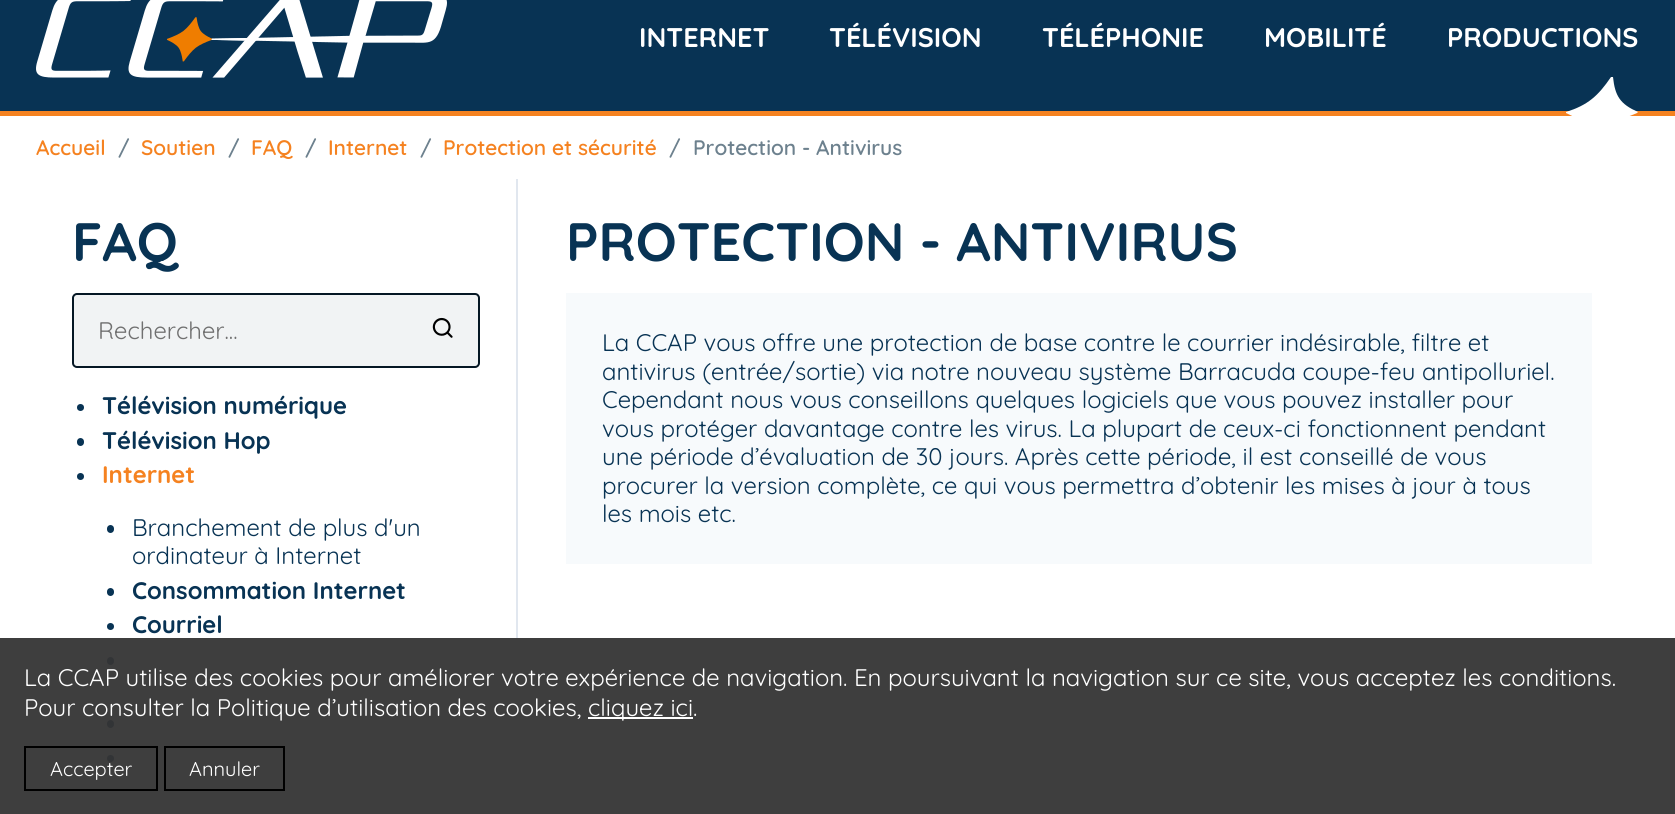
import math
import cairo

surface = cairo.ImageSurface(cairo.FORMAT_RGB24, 1675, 814)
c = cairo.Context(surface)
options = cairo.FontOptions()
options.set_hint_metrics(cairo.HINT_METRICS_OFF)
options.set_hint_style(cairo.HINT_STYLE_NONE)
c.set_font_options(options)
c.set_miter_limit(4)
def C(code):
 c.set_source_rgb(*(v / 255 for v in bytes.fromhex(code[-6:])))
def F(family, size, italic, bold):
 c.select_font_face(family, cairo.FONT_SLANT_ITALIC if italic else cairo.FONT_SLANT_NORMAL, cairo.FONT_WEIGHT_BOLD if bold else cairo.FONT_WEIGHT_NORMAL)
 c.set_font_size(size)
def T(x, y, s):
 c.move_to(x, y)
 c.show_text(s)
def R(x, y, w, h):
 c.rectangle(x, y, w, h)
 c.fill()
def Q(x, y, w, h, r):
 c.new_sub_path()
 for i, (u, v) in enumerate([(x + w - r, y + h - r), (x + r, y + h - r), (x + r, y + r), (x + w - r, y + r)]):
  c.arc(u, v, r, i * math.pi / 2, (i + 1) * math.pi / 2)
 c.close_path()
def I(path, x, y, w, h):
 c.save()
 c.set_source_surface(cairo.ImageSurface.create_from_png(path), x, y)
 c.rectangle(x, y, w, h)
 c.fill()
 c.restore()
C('ffffff')
c.paint()
C('3e3e3e')
R(0,638,1675,176)
C('083354')
R(0,0,1675,111)
C('f58220')
R(0,111,1675,5)
I('1.png',36,0,411,78)
F('Quicksand',27,0,1)
C('ffffff')
T(639,47,'INTERNET')
T(829,47,'TÉLÉVISION')
T(1042,47,'TÉLÉPHONIE')
T(1264,47,'MOBILITÉ')
T(1447,47,'PRODUCTIONS')
c.new_path()
c.move_to(1638,112)
c.curve_to(1620,104,1615,96,1613,77)
c.line_to(1611,77)
c.curve_to(1598,96,1588,105,1566,112)
c.line_to(1566,113)
c.curve_to(1584,121,1589,128,1591,148)
c.line_to(1593,148)
c.curve_to(1606,129,1616,121,1637,113)
c.close_path()
c.fill()
F('Quicksand SemiBold',21,0,0)
C('f58220')
T(36,155,'Accueil')
C('6d818e')
T(118,155,'/')
C('f58220')
T(141,155,'Soutien')
C('6d818e')
T(228,155,'/')
C('f58220')
T(251,155,'FAQ')
C('6d818e')
T(305,155,'/')
C('f58220')
T(328,155,'Internet')
C('6d818e')
T(420,155,'/')
C('f58220')
T(443,155,'Protection et sécurité')
C('6d818e')
T(669,155,'/')
T(693,155,'Protection - Antivirus')
F('Quicksand',54,0,1)
C('083354')
T(72,261,'FAQ')
C('f1f3f4')
Q(73,294,406,73,4)
c.fill_preserve()
C('051724')
c.stroke()
F('Quicksand',24,0,0)
C('707070')
T(98,339,'Rechercher...')
I('2.png',432,317,21,21)
C('083354')
c.arc(80.5,407.5,3.5,0,2 * math.pi)
c.fill()
F('Quicksand',24,0,1)
T(102,414,'Télévision numérique')
Q(77,438,7,8,3.5)
c.fill()
T(102,449,'Télévision Hop')
c.new_path()
c.arc(80.5,476.5,3.5,0,2 * math.pi)
c.fill()
C('f58220')
T(102,483,'Internet')
C('083354')
Q(107,525,7,8,3.5)
c.fill()
F('Quicksand',24,0,0)
T(132,536,'Branchement de plus d\'un')
T(132,564,'ordinateur à Internet')
Q(107,588,7,8,3.5)
c.fill()
F('Quicksand',24,0,1)
T(132,599,'Consommation Internet')
c.new_path()
c.arc(110.5,626.5,3.5,0,2 * math.pi)
c.fill()
T(132,633,'Courriel')
C('323436')
Q(107,657,7,8,3.5)
c.fill()
Q(107,720,7,8,3.5)
c.fill()
c.arc(110.5,758.5,3.5,0,2 * math.pi)
c.fill()
C('e1e7ef')
R(516,179,2,459)
F('Quicksand',54,0,1)
C('083354')
T(566,261,'PROTECTION - ANTIVIRUS')
C('f7fafc')
R(566,293,1026,271)
F('Quicksand',24,0,0)
C('083354')
T(602,351,'La CCAP vous offre une protection de base contre le courrier indésirable, filtre et')
T(602,380,'antivirus (entrée/sortie) via notre nouveau système Barracuda coupe-feu antipolluriel.')
T(602,408,'Cependant nous vous conseillons quelques logiciels que vous pouvez installer pour')
T(602,437,'vous protéger davantage contre les virus. La plupart de ceux-ci fonctionnent pendant')
T(602,465,'une période d’évaluation de 30 jours. Après cette période, il est conseillé de vous')
T(602,494,'procurer la version complète, ce qui vous permettra d’obtenir les mises à jour à tous')
T(602,522,'les mois etc.')
C('ffffff')
T(24,686,'La CCAP utilise des cookies pour améliorer votre expérience de navigation. En poursuivant la navigation sur ce site, vous acceptez les conditions.')
T(24,716,'Pour consulter la Politique d’utilisation des cookies,')
R(588,717,105,2)
T(588,716,'cliquez ici.')
c.rectangle(25,747,132,43)
C('000000')
c.stroke()
F('Quicksand',20,0,0)
C('ffffff')
T(50,776,'Accepter')
c.rectangle(165,747,119,43)
C('000000')
c.stroke()
C('ffffff')
T(189,776,'Annuler')
surface.write_to_png('o.png')
